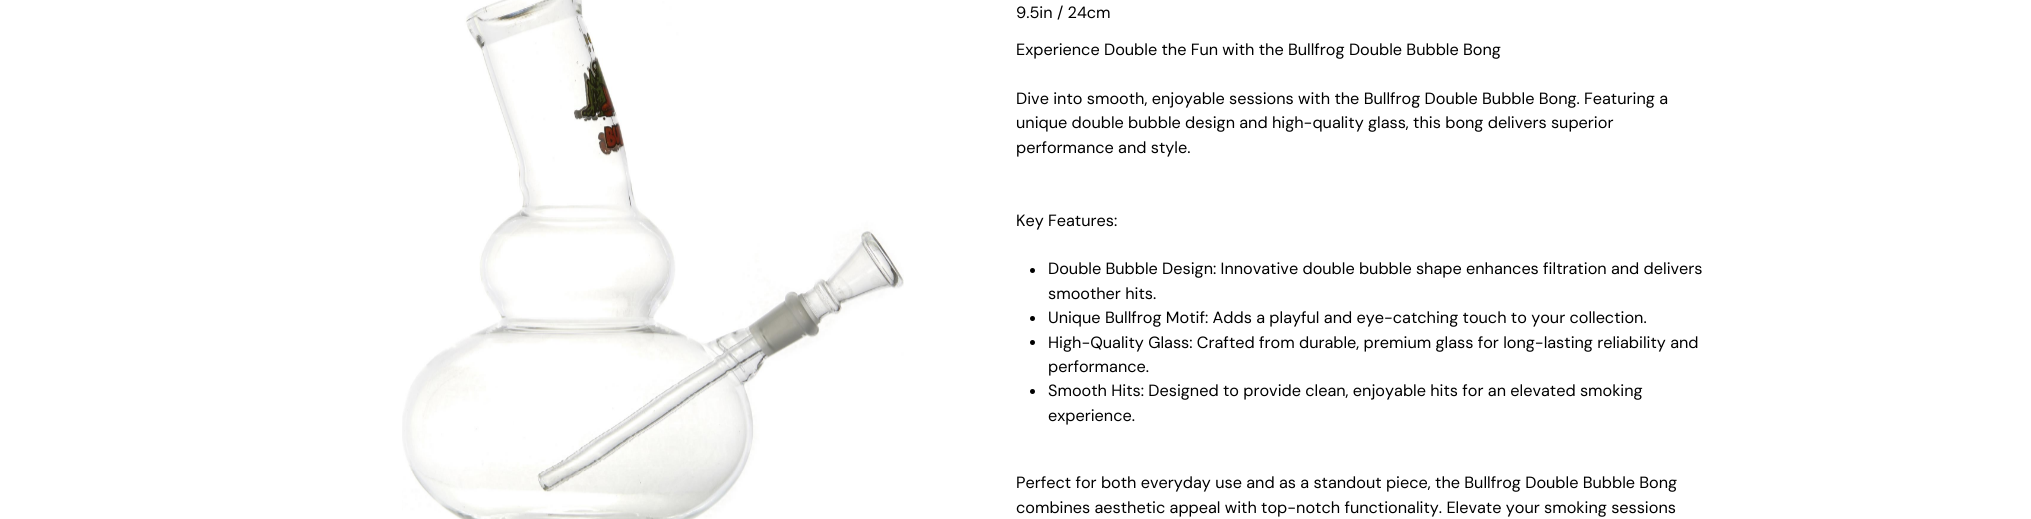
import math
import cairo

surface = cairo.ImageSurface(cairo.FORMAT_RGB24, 2031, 519)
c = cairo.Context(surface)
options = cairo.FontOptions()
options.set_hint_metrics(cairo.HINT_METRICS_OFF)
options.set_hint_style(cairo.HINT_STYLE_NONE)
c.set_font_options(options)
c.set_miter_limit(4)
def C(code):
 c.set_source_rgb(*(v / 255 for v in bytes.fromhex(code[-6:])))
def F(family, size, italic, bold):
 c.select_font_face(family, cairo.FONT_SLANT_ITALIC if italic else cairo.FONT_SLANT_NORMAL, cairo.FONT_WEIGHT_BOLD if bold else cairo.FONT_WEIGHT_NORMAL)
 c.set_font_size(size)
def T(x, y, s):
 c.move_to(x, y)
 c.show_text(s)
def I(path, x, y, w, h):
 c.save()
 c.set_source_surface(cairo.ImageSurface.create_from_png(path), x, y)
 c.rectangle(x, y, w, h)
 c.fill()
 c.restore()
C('ffffff')
c.paint()
I('1.png',402,0,502,519)
F('DM Sans',16.25,0,0)
C('000000')
T(1016,18,'9.5in / 24cm')
T(1016,55,'Experience Double the Fun with the Bullfrog Double Bubble Bong')
T(1016,104,'Dive into smooth, enjoyable sessions with the Bullfrog Double Bubble Bong. Featuring a')
T(1016,128,'unique double bubble design and high-quality glass, this bong delivers superior')
T(1016,153,'performance and style.')
T(1016,226,'Key Features:')
c.new_path()
c.arc(1032.5,270.5,2.5,0,2 * math.pi)
c.fill()
T(1048,274,'Double Bubble Design: Innovative double bubble shape enhances filtration and delivers')
T(1048,299,'smoother hits.')
c.new_path()
c.arc(1032.5,318.5,2.5,0,2 * math.pi)
c.fill()
T(1048,323,'Unique Bullfrog Motif: Adds a playful and eye-catching touch to your collection.')
c.new_path()
c.arc(1032.5,342.5,2.5,0,2 * math.pi)
c.fill()
T(1048,348,'High-Quality Glass: Crafted from durable, premium glass for long-lasting reliability and')
T(1048,372,'performance.')
c.new_path()
c.arc(1032.5,391.5,2.5,0,2 * math.pi)
c.fill()
T(1048,396,'Smooth Hits: Designed to provide clean, enjoyable hits for an elevated smoking')
T(1048,421,'experience.')
T(1016,488,'Perfect for both everyday use and as a standout piece, the Bullfrog Double Bubble Bong')
T(1016,513,'combines aesthetic appeal with top-notch functionality. Elevate your smoking sessions')
surface.write_to_png('o.png')
